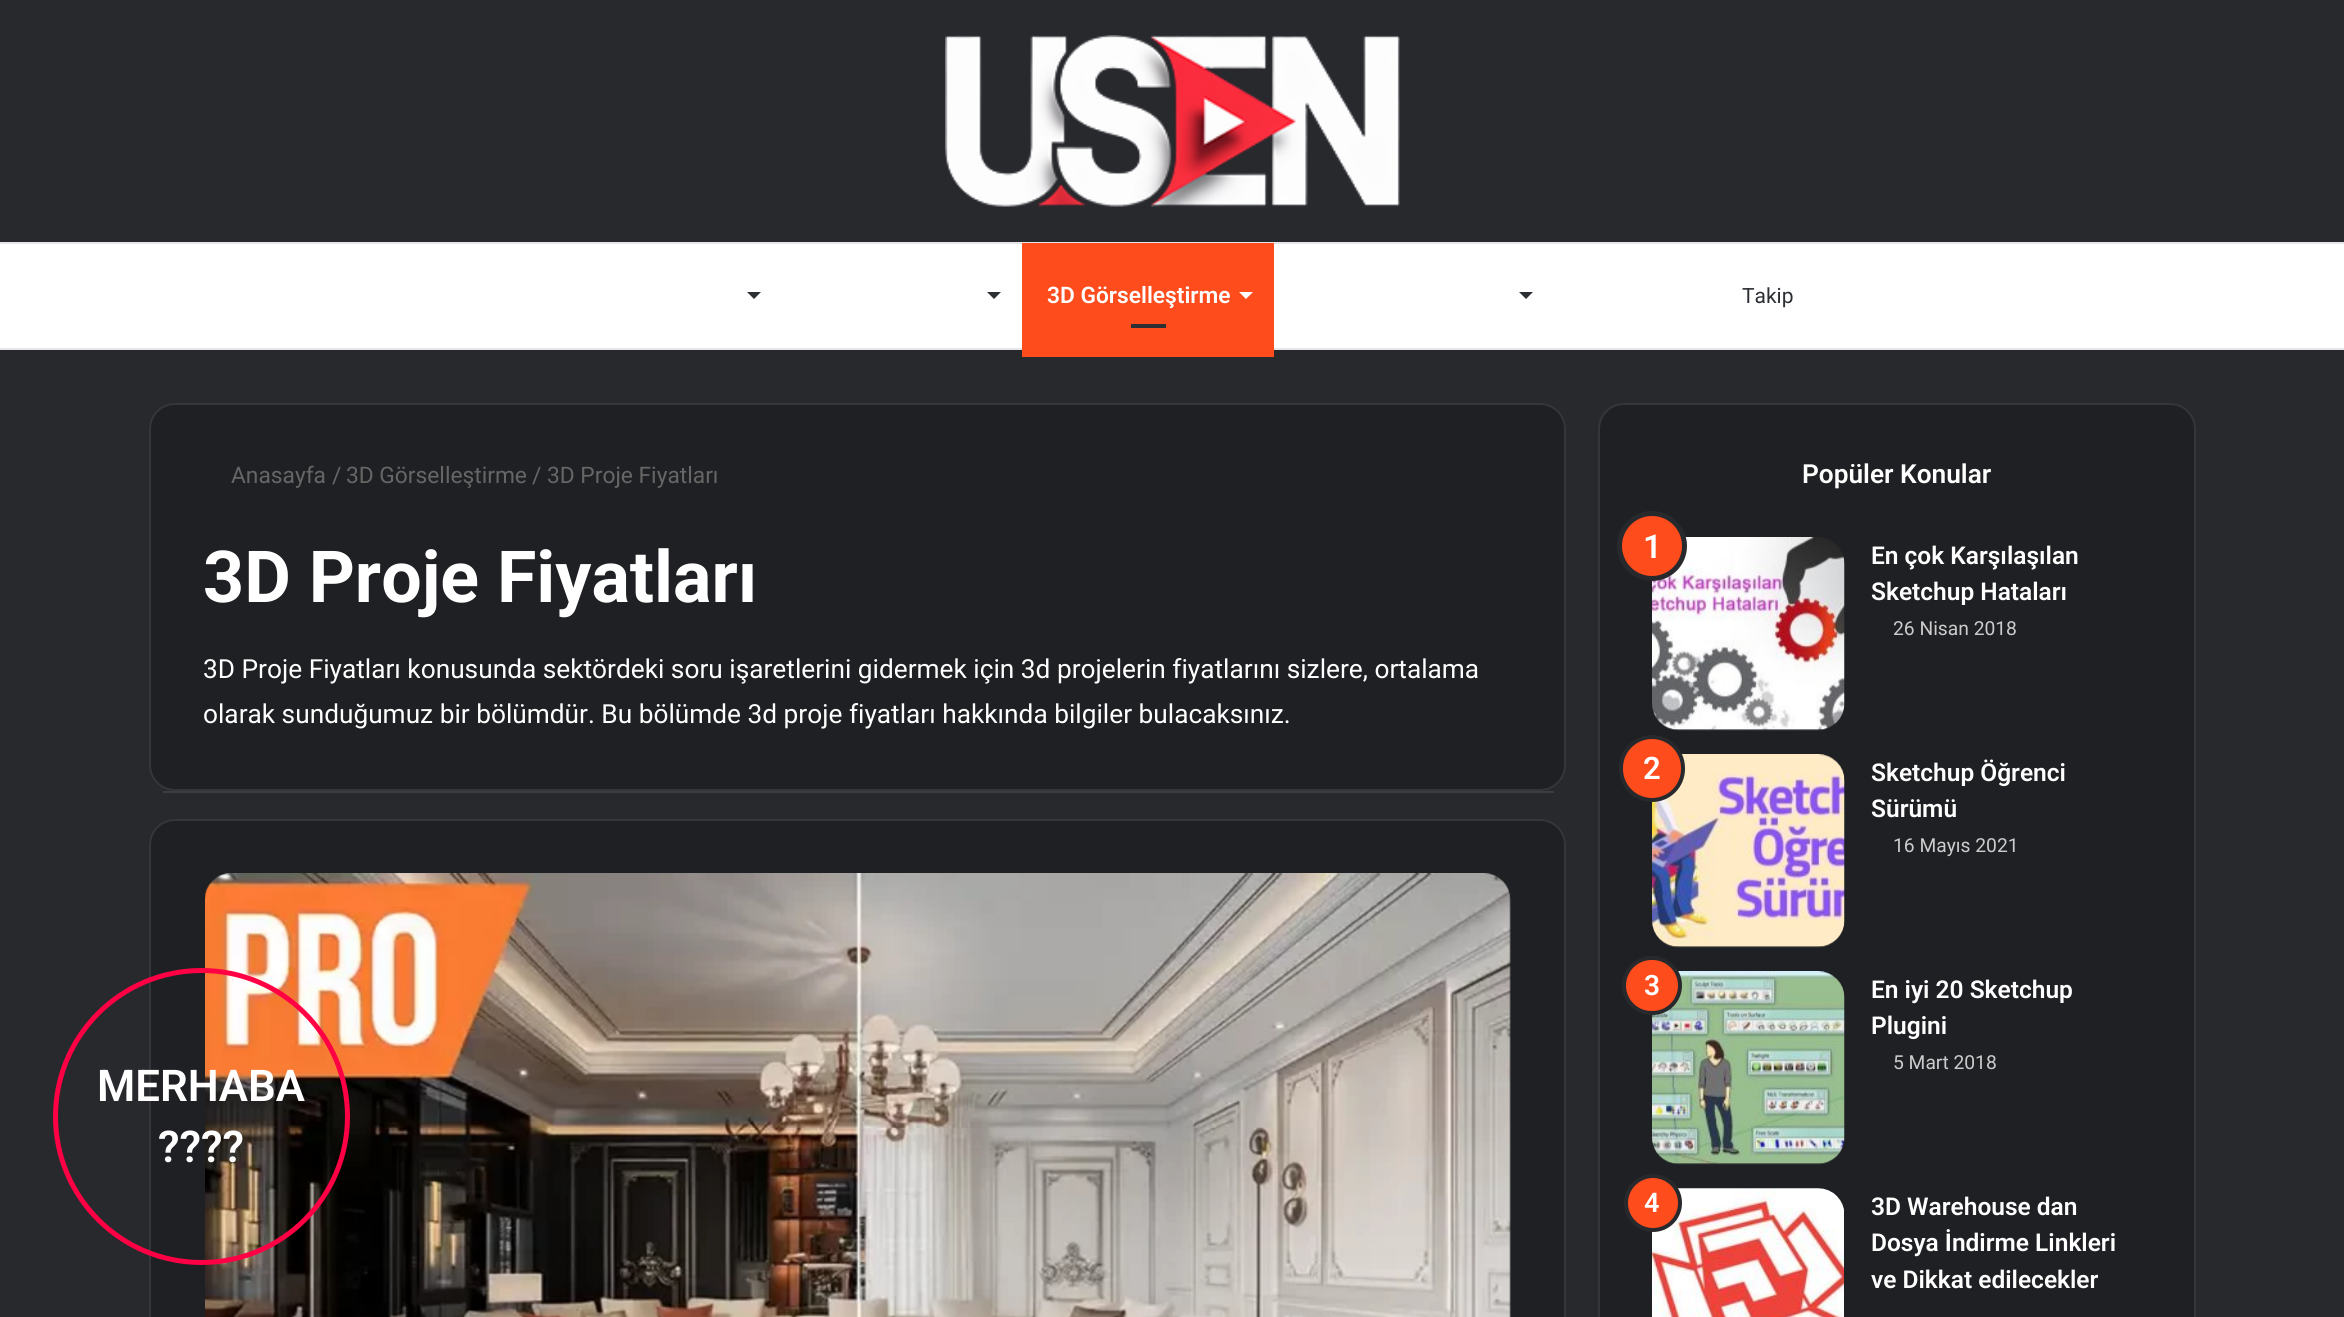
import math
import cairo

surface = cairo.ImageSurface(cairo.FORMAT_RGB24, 2344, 1317)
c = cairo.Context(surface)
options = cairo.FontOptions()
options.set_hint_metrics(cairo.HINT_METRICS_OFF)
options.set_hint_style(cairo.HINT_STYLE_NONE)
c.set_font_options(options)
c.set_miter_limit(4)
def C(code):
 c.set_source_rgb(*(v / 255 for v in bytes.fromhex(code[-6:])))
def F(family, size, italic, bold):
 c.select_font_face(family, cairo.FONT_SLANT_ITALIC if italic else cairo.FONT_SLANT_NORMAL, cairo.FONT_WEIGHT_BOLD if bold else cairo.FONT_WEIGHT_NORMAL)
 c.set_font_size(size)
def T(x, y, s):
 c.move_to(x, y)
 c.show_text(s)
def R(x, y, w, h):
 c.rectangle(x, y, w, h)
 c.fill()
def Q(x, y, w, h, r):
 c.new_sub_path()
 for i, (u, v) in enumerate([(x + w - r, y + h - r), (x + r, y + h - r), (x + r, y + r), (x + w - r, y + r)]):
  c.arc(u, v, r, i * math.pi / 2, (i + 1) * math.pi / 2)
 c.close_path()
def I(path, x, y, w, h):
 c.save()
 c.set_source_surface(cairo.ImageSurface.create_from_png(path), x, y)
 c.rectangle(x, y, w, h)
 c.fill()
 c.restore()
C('27292d')
c.paint()
C('1f2024')
Q(149,819,1417,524,26)
c.fill()
Q(150,820,1415,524,25)
c.set_source_rgba(1,1,1,0.1)
c.stroke()
I('2.png',205,873,1306,444)
c.arc(201.5,1116.5,146,0,2 * math.pi)
C('ff0044')
c.set_line_width(5)
c.stroke()
F('Roboto SemiBold',43.75,0,0)
C('ffffff')
T(97,1101,'MERHABA')
T(158,1162,'????')
I('1.png',945,35,455,172)
R(0,244,2344,104)
C('e6e6e6')
R(0,242,2344,2)
R(0,348,2344,2)
C('2c2f34')
c.new_path()
c.move_to(747,292)
c.line_to(761,292)
c.line_to(754,299)
c.close_path()
c.fill()
c.new_path()
c.move_to(987,292)
c.line_to(1001,292)
c.line_to(994,299)
c.close_path()
c.fill()
C('fe4c1c')
R(1022,243,252,114)
F('Roboto SemiBold',22.75,0,0)
C('ffffff')
T(1047,303,'3D Görselleştirme')
c.new_path()
c.move_to(1239,292)
c.line_to(1253,292)
c.line_to(1246,299)
c.close_path()
c.fill()
C('2c2f34')
R(1131,324,35,4)
c.new_path()
c.move_to(1519,292)
c.line_to(1533,292)
c.line_to(1526,299)
c.close_path()
c.fill()
F('Roboto',21,0,0)
T(1742,303,'Takip')
C('1f2024')
Q(149,403,1417,388,26)
c.fill()
Q(150,404,1415,386,25)
c.set_source_rgba(1,1,1,0.1)
c.set_line_width(2)
c.stroke()
F('Roboto',22.75,0,0)
C('666666')
T(231,483,'Anasayfa')
T(332,483,'/')
T(346,483,'3D Görselleştirme')
T(532,483,'/')
T(547,483,'3D Proje Fiyatları')
F('Roboto',71.75,0,1)
C('ffffff')
T(203,602,'3D Proje Fiyatları')
F('Roboto',26.25,0,0)
T(203,678,'3D Proje Fiyatları konusunda sektördeki soru işaretlerini gidermek için 3d projelerin fiyatlarını sizlere, ortalama')
T(203,723,'olarak sunduğumuz bir bölümdür. Bu bölümde 3d proje fiyatları hakkında bilgiler bulacaksınız.')
C('3b3d41')
R(163,791,1391,2)
C('1f2024')
Q(1598,403,598,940,26)
c.fill()
Q(1599,404,596,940,25)
c.set_source_rgba(1,1,1,0.1)
c.stroke()
F('Roboto SemiBold',26.25,0,0)
C('ffffff')
T(1802,483,'Popüler Konular')
I('3.png',1652,537,193,194)
C('fe4c1c')
c.arc(1652,546,32.5,0,2 * math.pi)
c.fill_preserve()
C('27292d')
c.set_line_width(5)
c.stroke()
F('Roboto SemiBold',33,0,0)
C('ffffff')
T(1643,558,'1')
F('Roboto SemiBold',24.5,0,0)
T(1871,564,'En çok Karşılaşılan')
T(1871,600,'Sketchup Hataları')
F('Roboto',19.25,0,0)
C('cccccc')
T(1893,635,'26 Nisan 2018')
I('4.png',1652,754,193,194)
C('fe4c1c')
Q(1621,737,62,63,31)
c.fill_preserve()
C('27292d')
c.set_line_width(4)
c.stroke()
F('Roboto SemiBold',31,0,0)
C('ffffff')
T(1643,779,'2')
F('Roboto SemiBold',24.5,0,0)
T(1871,781,'Sketchup Öğrenci')
T(1871,817,'Sürümü')
F('Roboto',19.25,0,0)
C('cccccc')
T(1893,852,'16 Mayıs 2021')
I('5.png',1652,971,193,194)
C('fe4c1c')
Q(1624,958,56,55,27.5)
c.fill_preserve()
C('27292d')
c.stroke()
F('Roboto SemiBold',28,0,0)
C('ffffff')
T(1644,995,'3')
F('Roboto SemiBold',24.5,0,0)
T(1871,998,'En iyi 20 Sketchup')
T(1871,1034,'Plugini')
F('Roboto',19.25,0,0)
C('cccccc')
T(1893,1069,'5 Mart 2018')
I('6.png',1652,1188,192,129)
C('fe4c1c')
c.arc(1653,1203,27,0,2 * math.pi)
c.fill_preserve()
C('27292d')
c.stroke()
F('Roboto SemiBold',27,0,0)
C('ffffff')
T(1644,1212,'4')
F('Roboto SemiBold',24.5,0,0)
T(1871,1215,'3D Warehouse dan')
T(1871,1251,'Dosya İndirme Linkleri')
T(1871,1288,'ve Dikkat edilecekler')
surface.write_to_png('o.png')
